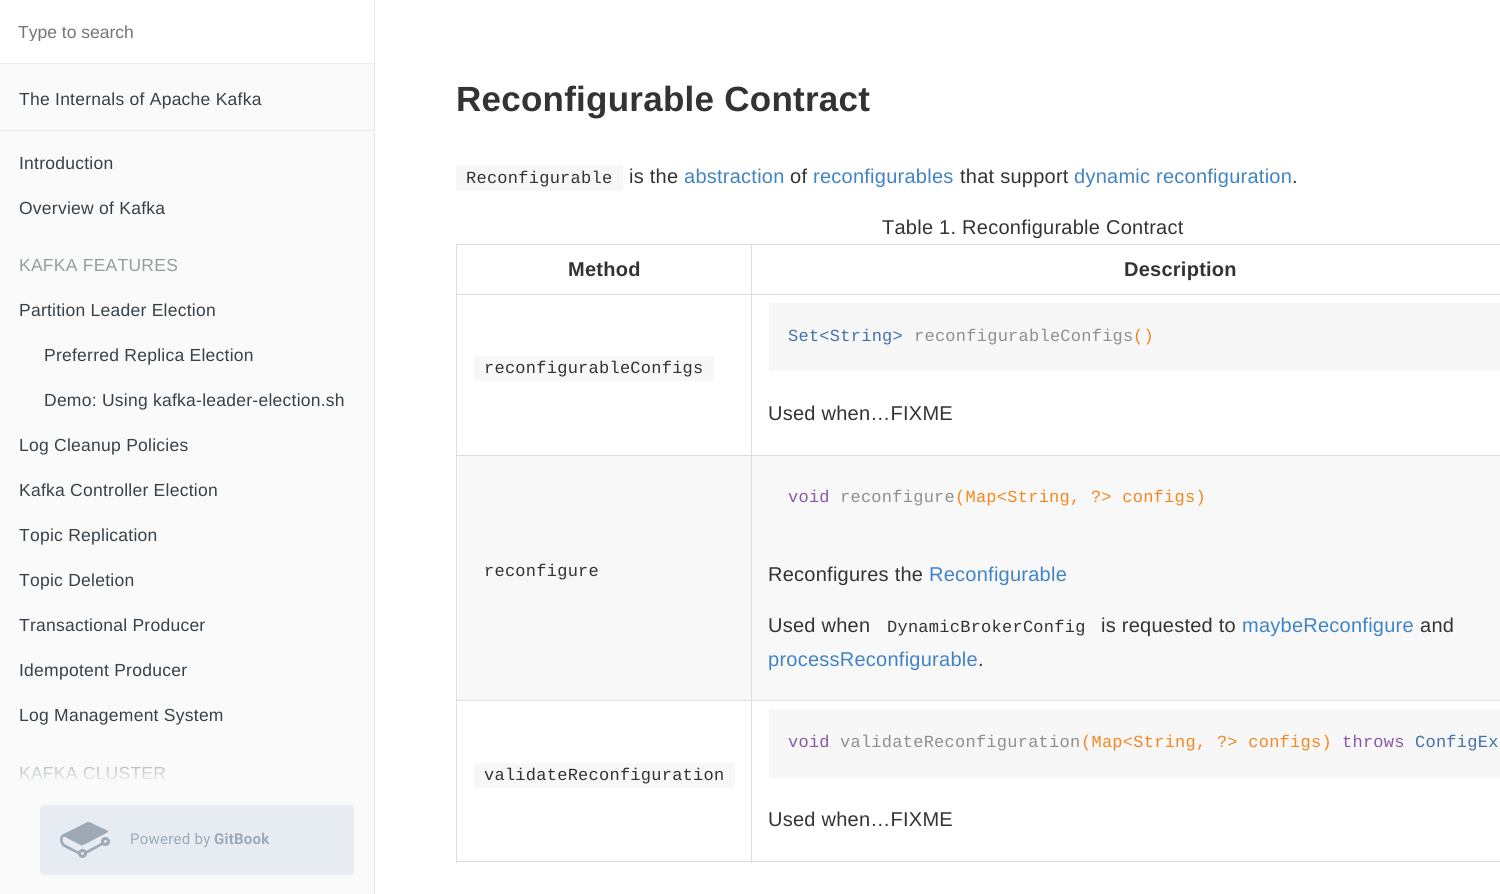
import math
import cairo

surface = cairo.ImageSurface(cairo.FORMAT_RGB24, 1500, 894)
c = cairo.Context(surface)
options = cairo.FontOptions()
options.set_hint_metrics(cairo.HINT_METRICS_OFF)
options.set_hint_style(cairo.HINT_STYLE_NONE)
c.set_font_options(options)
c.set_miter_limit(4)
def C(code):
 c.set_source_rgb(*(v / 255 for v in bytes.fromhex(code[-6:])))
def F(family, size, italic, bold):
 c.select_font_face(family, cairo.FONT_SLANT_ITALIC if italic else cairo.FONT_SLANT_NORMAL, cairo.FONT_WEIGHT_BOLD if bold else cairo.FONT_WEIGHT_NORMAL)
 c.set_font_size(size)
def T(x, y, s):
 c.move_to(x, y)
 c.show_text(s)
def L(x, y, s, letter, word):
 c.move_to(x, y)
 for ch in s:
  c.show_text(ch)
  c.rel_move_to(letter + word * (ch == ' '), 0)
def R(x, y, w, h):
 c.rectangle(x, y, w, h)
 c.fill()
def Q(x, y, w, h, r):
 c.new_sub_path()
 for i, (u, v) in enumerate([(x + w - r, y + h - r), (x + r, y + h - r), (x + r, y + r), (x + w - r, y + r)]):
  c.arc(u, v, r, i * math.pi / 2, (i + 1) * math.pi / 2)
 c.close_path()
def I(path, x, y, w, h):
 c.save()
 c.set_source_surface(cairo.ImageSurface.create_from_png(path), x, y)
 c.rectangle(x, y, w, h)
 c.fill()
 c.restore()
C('ffffff')
c.paint()
C('fafafa')
R(0,64,374,830)
C('e9e9e9')
R(374,0,1,894)
C('ededed')
R(0,63,374,1)
c.save()
c.rectangle(18,21,338,20)
c.clip()
F('Liberation Sans',17.5,0,0)
C('757575')
T(18,38,'Type to search')
c.restore()
F('Liberation Sans',17.5,0,0)
C('364149')
L(19,105,'The Internals of Apache Kafka',.25,0)
C('e9e9e9')
R(0,130,374,1)
C('364149')
L(19,169,'Introduction',.25,0)
L(19,214,'Overview of Kafka',.25,0)
C('939da3')
L(19,271,'KAFKA FEATURES',.25,0)
C('364149')
L(19,316,'Partition Leader Election',.25,0)
L(44,361,'Preferred Replica Election',.25,0)
L(44,406,'Demo: Using kafka-leader-election.sh',.25,0)
L(19,451,'Log Cleanup Policies',.25,0)
L(19,496,'Kafka Controller Election',.25,0)
L(19,541,'Topic Replication',.25,0)
L(19,586,'Topic Deletion',.25,0)
L(19,631,'Transactional Producer',.25,0)
L(19,676,'Idempotent Producer',.25,0)
L(19,721,'Log Management System',.25,0)
C('939da3')
L(19,779,'KAFKA CLUSTER',.25,0)
gradient = cairo.LinearGradient(187,755,187,785)
gradient.add_color_stop_rgba(0,0.98,0.98,0.98,0)
gradient.add_color_stop_rgba(1,0.98,0.98,0.98,1)
c.set_source(gradient)
R(20,766,145,14)
C('e6ecf1')
Q(40,805,314,70,4)
c.fill()
I('1.png',60,822,50,36)
F('Roboto',15,0,0)
C('9daab6')
L(130,844,'Powered by',.25,0)
F('Roboto',15,0,1)
L(214,844,'GitBook',.25,0)
F('Liberation Sans',35,0,1)
C('333333')
L(456,111,'Reconfigurable Contract',.25,0)
C('f7f7f7')
R(456,165,167,26)
F('Liberation Mono',17,0,0)
C('333333')
L(466,183,'Reconfigurable',.25,0)
F('Liberation Sans',20,0,0)
L(629,183,'is the',.25,0)
C('4183c4')
L(684,183,'abstraction',.25,0)
C('333333')
L(790,183,'of',.25,0)
C('4183c4')
L(813,183,'reconfigurables',.25,0)
C('333333')
L(960,183,'that support',.25,0)
C('4183c4')
L(1074,183,'dynamic reconfiguration',.25,0)
C('333333')
L(1292,183,'.',.25,0)
L(882,234,'Table 1. Reconfigurable Contract',.25,0)
C('dddddd')
R(751,244,749,1)
R(751,294,749,1)
R(751,455,749,1)
C('f8f8f8')
R(458,456,1042,244)
C('dddddd')
R(751,700,749,1)
R(751,861,749,1)
R(751,700,1,163)
R(456,700,297,1)
R(751,455,1,246)
R(456,455,297,1)
R(751,294,1,162)
R(456,294,297,1)
R(751,244,1,51)
R(456,244,297,1)
R(456,861,297,1)
R(456,700,1,163)
R(456,455,1,246)
R(456,294,1,162)
R(456,244,1,51)
F('Liberation Sans',20,0,1)
C('333333')
L(568,276,'Method',.25,0)
L(1124,276,'Description',.25,0)
C('f7f7f7')
R(474,356,240,25)
F('Liberation Mono',17,0,0)
C('333333')
L(484,373,'reconfigurableConfigs',.25,0)
C('f7f7f7')
R(769,303,731,68)
C('4271ae')
L(788,341,'Set<String>',.25,0)
C('8e908c')
L(914,341,'reconfigurableConfigs',.25,0)
C('f5871f')
L(1133,341,'()',.25,0)
F('Liberation Sans',20,0,0)
C('333333')
L(768,420,'Used when…FIXME',.25,0)
F('Liberation Mono',17,0,0)
L(484,576,'reconfigure',.25,0)
C('8959a8')
L(788,502,'void',.25,0)
C('8e908c')
L(840,502,'reconfigure',.25,0)
C('f5871f')
L(955,502,'(Map<String, ?> configs)',.25,0)
F('Liberation Sans',20,0,0)
C('333333')
L(768,581,'Reconfigures the',.25,0)
C('4183c4')
L(929,581,'Reconfigurable',.25,0)
C('333333')
L(768,632,'Used when',.25,0)
F('Liberation Mono',17,0,0)
L(887,632,'DynamicBrokerConfig',.25,0)
F('Liberation Sans',20,0,0)
L(1101,632,'is requested to',.25,0)
C('4183c4')
L(1242,632,'maybeReconfigure',.25,0)
C('333333')
L(1420,632,'and',.25,0)
C('4183c4')
L(768,666,'processReconfigurable',.25,0)
C('333333')
L(978,666,'.',.25,0)
C('f7f7f7')
R(474,763,261,25)
F('Liberation Mono',17,0,0)
C('333333')
L(484,780,'validateReconfiguration',.25,0)
C('f7f7f7')
R(769,709,731,69)
C('8959a8')
L(788,747,'void',.25,0)
C('8e908c')
L(840,747,'validateReconfiguration',.25,0)
C('f5871f')
L(1081,747,'(Map<String, ?> configs)',.25,0)
C('8959a8')
L(1342,747,'throws',.25,0)
C('4271ae')
L(1415,747,'ConfigEx',.25,0)
F('Liberation Sans',20,0,0)
C('333333')
L(768,826,'Used when…FIXME',.25,0)
surface.write_to_png('o.png')
